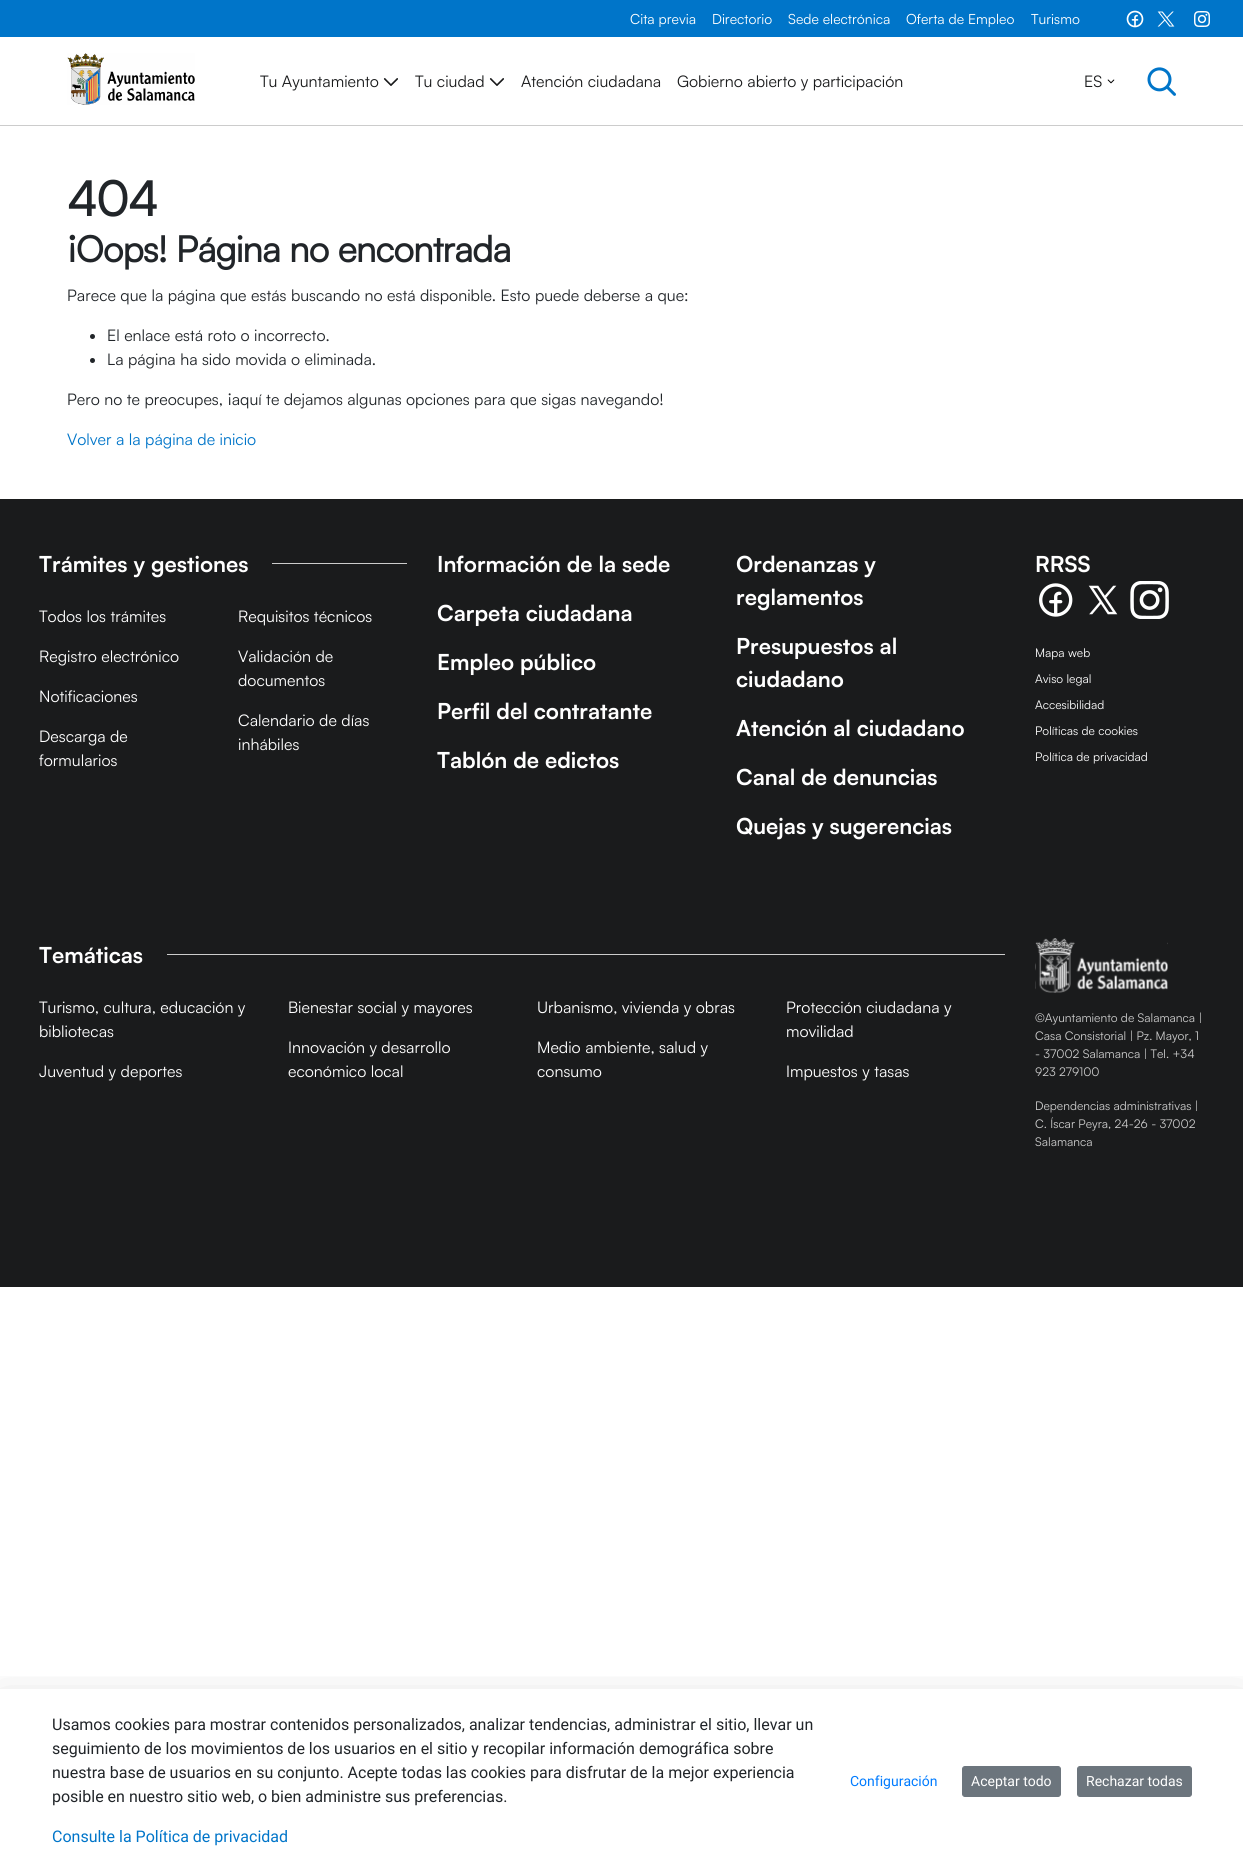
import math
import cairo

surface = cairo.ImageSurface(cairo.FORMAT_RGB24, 1243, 1873)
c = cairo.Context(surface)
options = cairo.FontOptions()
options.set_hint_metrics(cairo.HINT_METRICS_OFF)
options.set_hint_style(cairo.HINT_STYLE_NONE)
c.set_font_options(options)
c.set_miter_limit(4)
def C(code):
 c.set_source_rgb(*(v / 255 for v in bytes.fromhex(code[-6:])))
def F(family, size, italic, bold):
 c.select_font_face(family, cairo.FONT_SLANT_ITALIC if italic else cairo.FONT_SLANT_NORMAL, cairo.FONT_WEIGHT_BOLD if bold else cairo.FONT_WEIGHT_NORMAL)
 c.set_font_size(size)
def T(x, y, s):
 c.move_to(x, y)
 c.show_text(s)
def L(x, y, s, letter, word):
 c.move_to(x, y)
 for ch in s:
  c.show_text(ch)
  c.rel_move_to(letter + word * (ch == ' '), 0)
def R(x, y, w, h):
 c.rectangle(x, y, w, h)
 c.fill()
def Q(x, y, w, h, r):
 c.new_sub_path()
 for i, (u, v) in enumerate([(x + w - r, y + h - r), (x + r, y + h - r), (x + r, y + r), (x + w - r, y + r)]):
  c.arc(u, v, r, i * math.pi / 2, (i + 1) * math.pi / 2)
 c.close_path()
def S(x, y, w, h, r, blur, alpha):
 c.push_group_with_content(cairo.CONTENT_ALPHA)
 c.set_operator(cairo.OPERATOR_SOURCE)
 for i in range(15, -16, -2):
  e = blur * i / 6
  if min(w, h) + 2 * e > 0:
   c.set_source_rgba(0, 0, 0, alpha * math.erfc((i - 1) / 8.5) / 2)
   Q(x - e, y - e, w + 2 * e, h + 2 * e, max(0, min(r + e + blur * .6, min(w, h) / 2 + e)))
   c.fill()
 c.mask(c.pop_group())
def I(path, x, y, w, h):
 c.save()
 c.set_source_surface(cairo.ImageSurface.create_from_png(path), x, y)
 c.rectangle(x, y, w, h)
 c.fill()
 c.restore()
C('ffffff')
c.paint()
C('0075c9')
R(0,0,1243,37)
F('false',14,0,0)
C('ffffff')
T(630,24,'Cita previa')
T(712,24,'Directorio')
T(788,24,'Sede electrónica')
T(906,24,'Oferta de Empleo')
T(1031,24,'Turismo')
I('1.png',1126,10,18,18)
I('2.png',1157,11,18,16)
I('3.png',1194,11,16,16)
C('cccccc')
R(0,125,1243,1)
I('4.png',67,53,128,52)
F('false',16,0,0)
C('1a1b1c')
T(260,87,'Tu Ayuntamiento')
I('5.png',383,78,15,8)
T(415,87,'Tu ciudad')
I('5.png',489,78,15,8)
T(521,87,'Atención ciudadana')
T(677,87,'Gobierno abierto y participación')
I('6.png',1107,79,8,5)
T(1084,87,'ES')
I('7.png',1147,67,29,29)
F('false',48,0,1)
C('212529')
L(67,216,'404',-1,0)
F('false',36,0,1)
L(67,262,'¡Oops! Página no encontrada',-.75,0)
F('false',16,0,0)
T(67,301,'Parece que la página que estás buscando no está disponible. Esto puede deberse a que:')
c.new_path()
c.arc(92.5,336.5,2.5,0,2 * math.pi)
c.fill()
T(107,341,'El enlace está roto o incorrecto.')
c.new_path()
c.arc(92.5,360.5,2.5,0,2 * math.pi)
c.fill()
T(107,365,'La página ha sido movida o eliminada.')
T(67,405,'Pero no te preocupes, ¡aquí te dejamos algunas opciones para que sigas navegando!')
C('0075c9')
T(67,445,'Volver a la página de inicio')
C('1a1b1c')
R(0,499,1243,788)
F('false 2',22,0,1)
C('ffffff')
T(39,572,'Trámites y gestiones')
C('cccccc')
R(272,563,135,1)
F('false',16,0,0)
C('ffffff')
T(39,622,'Todos los trámites')
T(39,662,'Registro electrónico')
T(39,702,'Notificaciones')
T(39,742,'Descarga de')
T(39,766,'formularios')
T(238,622,'Requisitos técnicos')
T(238,662,'Validación de')
T(238,686,'documentos')
T(238,726,'Calendario de días')
T(238,750,'inhábiles')
F('false 2',22,0,1)
T(437,572,'Información de la sede')
T(437,621,'Carpeta ciudadana')
T(437,670,'Empleo público')
T(437,719,'Perfil del contratante')
T(437,768,'Tablón de edictos')
T(736,572,'Ordenanzas y')
T(736,605,'reglamentos')
T(736,654,'Presupuestos al')
T(736,687,'ciudadano')
T(736,736,'Atención al ciudadano')
T(736,785,'Canal de denuncias')
T(736,834,'Quejas y sugerencias')
T(1035,572,'RRSS')
I('8.png',1039,583,34,34)
I('9.png',1088,585,30,30)
I('10.png',1130,581,39,38)
F('false',12,0,0)
T(1035,657,'Mapa web')
T(1035,683,'Aviso legal')
T(1035,709,'Accesibilidad')
T(1035,735,'Políticas de cookies')
T(1035,761,'Política de privacidad')
F('false 2',22,0,1)
T(39,963,'Temáticas')
C('cccccc')
R(167,954,838,1)
F('false',16,0,0)
C('ffffff')
T(39,1013,'Turismo, cultura, educación y')
T(39,1037,'bibliotecas')
T(39,1077,'Juventud y deportes')
T(288,1013,'Bienestar social y mayores')
T(288,1053,'Innovación y desarrollo')
T(288,1077,'económico local')
T(537,1013,'Urbanismo, vivienda y obras')
T(537,1053,'Medio ambiente, salud y')
T(537,1077,'consumo')
T(786,1013,'Protección ciudadana y')
T(786,1037,'movilidad')
T(786,1077,'Impuestos y tasas')
I('11.png',1035,938,133,55)
F('false',12,0,0)
C('cccccc')
T(1035,1022,'©Ayuntamiento de Salamanca |')
T(1035,1040,'Casa Consistorial | Pz. Mayor, 1')
T(1035,1058,'- 37002 Salamanca | Tel. +34')
T(1035,1076,'923 279100')
T(1035,1110,'Dependencias administrativas |')
T(1035,1128,'C. Íscar Peyra, 24-26 - 37002')
T(1035,1146,'Salamanca')
c.save()
c.rectangle(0,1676,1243,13)
c.clip()
C('000000')
S(0,1705,1243,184,0,24,.18)
c.restore()
F('Roboto',16,0,0)
C('212529')
T(52,1730,'Usamos cookies para mostrar contenidos personalizados, analizar tendencias, administrar el sitio, llevar un')
T(52,1754,'seguimiento de los movimientos de los usuarios en el sitio y recopilar información demográfica sobre')
T(52,1778,'nuestra base de usuarios en su conjunto. Acepte todas las cookies para disfrutar de la mejor experiencia')
T(52,1802,'posible en nuestro sitio web, o bien administre sus preferencias.')
C('0075c9')
T(52,1842,'Consulte la Política de privacidad')
F('Roboto',14,0,0)
C('007bff')
T(850,1786,'Configuración')
C('6c757d')
Q(962.5,1766.5,98,30,2.5)
c.fill_preserve()
c.set_line_width(1)
c.stroke()
C('ffffff')
T(971,1786,'Aceptar todo')
C('6c757d')
Q(1077.5,1766.5,114,30,2.5)
c.fill_preserve()
c.stroke()
C('ffffff')
T(1086,1786,'Rechazar todas')
surface.write_to_png('o.png')
